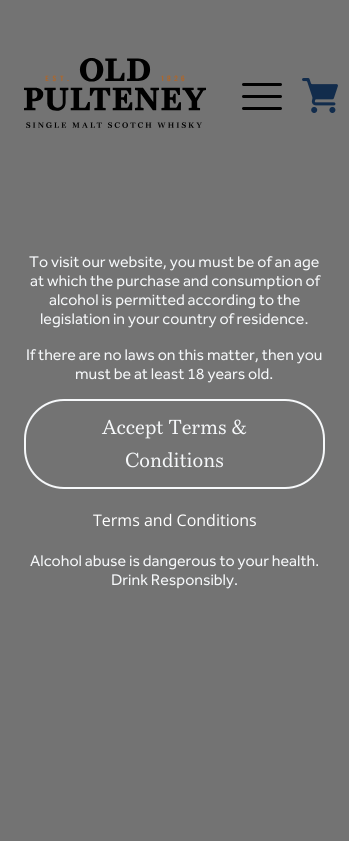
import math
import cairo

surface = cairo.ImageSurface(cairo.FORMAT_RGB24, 349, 841)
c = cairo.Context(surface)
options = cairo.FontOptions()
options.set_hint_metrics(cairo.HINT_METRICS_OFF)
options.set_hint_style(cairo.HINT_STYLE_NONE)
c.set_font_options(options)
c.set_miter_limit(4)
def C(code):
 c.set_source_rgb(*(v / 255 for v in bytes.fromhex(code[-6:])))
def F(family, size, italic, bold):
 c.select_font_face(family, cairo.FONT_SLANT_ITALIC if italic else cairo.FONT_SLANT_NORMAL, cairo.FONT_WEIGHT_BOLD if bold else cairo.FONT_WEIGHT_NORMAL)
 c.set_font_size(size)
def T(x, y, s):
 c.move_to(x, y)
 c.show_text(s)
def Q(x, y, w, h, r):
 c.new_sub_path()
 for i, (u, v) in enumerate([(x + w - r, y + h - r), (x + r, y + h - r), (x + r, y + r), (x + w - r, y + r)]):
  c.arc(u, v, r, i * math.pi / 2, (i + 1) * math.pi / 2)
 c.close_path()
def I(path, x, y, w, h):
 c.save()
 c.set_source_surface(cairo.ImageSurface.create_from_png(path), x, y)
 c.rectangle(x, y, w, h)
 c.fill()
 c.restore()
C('737373')
c.paint()
I('1.png',24,58,182,70)
C('000000')
Q(242,83,40,3,1.5)
c.fill()
Q(242,95,40,3,1.5)
c.fill()
Q(242,107,40,3,1.5)
c.fill()
I('2.png',302,78,36,35)
F('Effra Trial',16,0,0)
C('f6f8fa')
T(29,267,'To visit our website, you must be of an age')
T(30,286,'at which the purchase and consumption of')
T(49,305,'alcohol is permitted according to the')
T(40,324,'legislation in your country of residence.')
T(26,360,'If there are no laws on this matter, then you')
T(75,379,'must be at least 18 years old.')
Q(25,400,299,88,39)
c.stroke()
F('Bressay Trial',20,0,0)
T(102,434,'Accept Terms &')
T(125,467,'Conditions')
F('Open Sans',16,0,0)
C('ffffff')
T(93,526,'Terms and Conditions')
F('Effra Trial',16,0,0)
C('f6f8fa')
T(30,566,'Alcohol abuse is dangerous to your health.')
T(111,585,'Drink Responsibly.')
surface.write_to_png('o.png')
